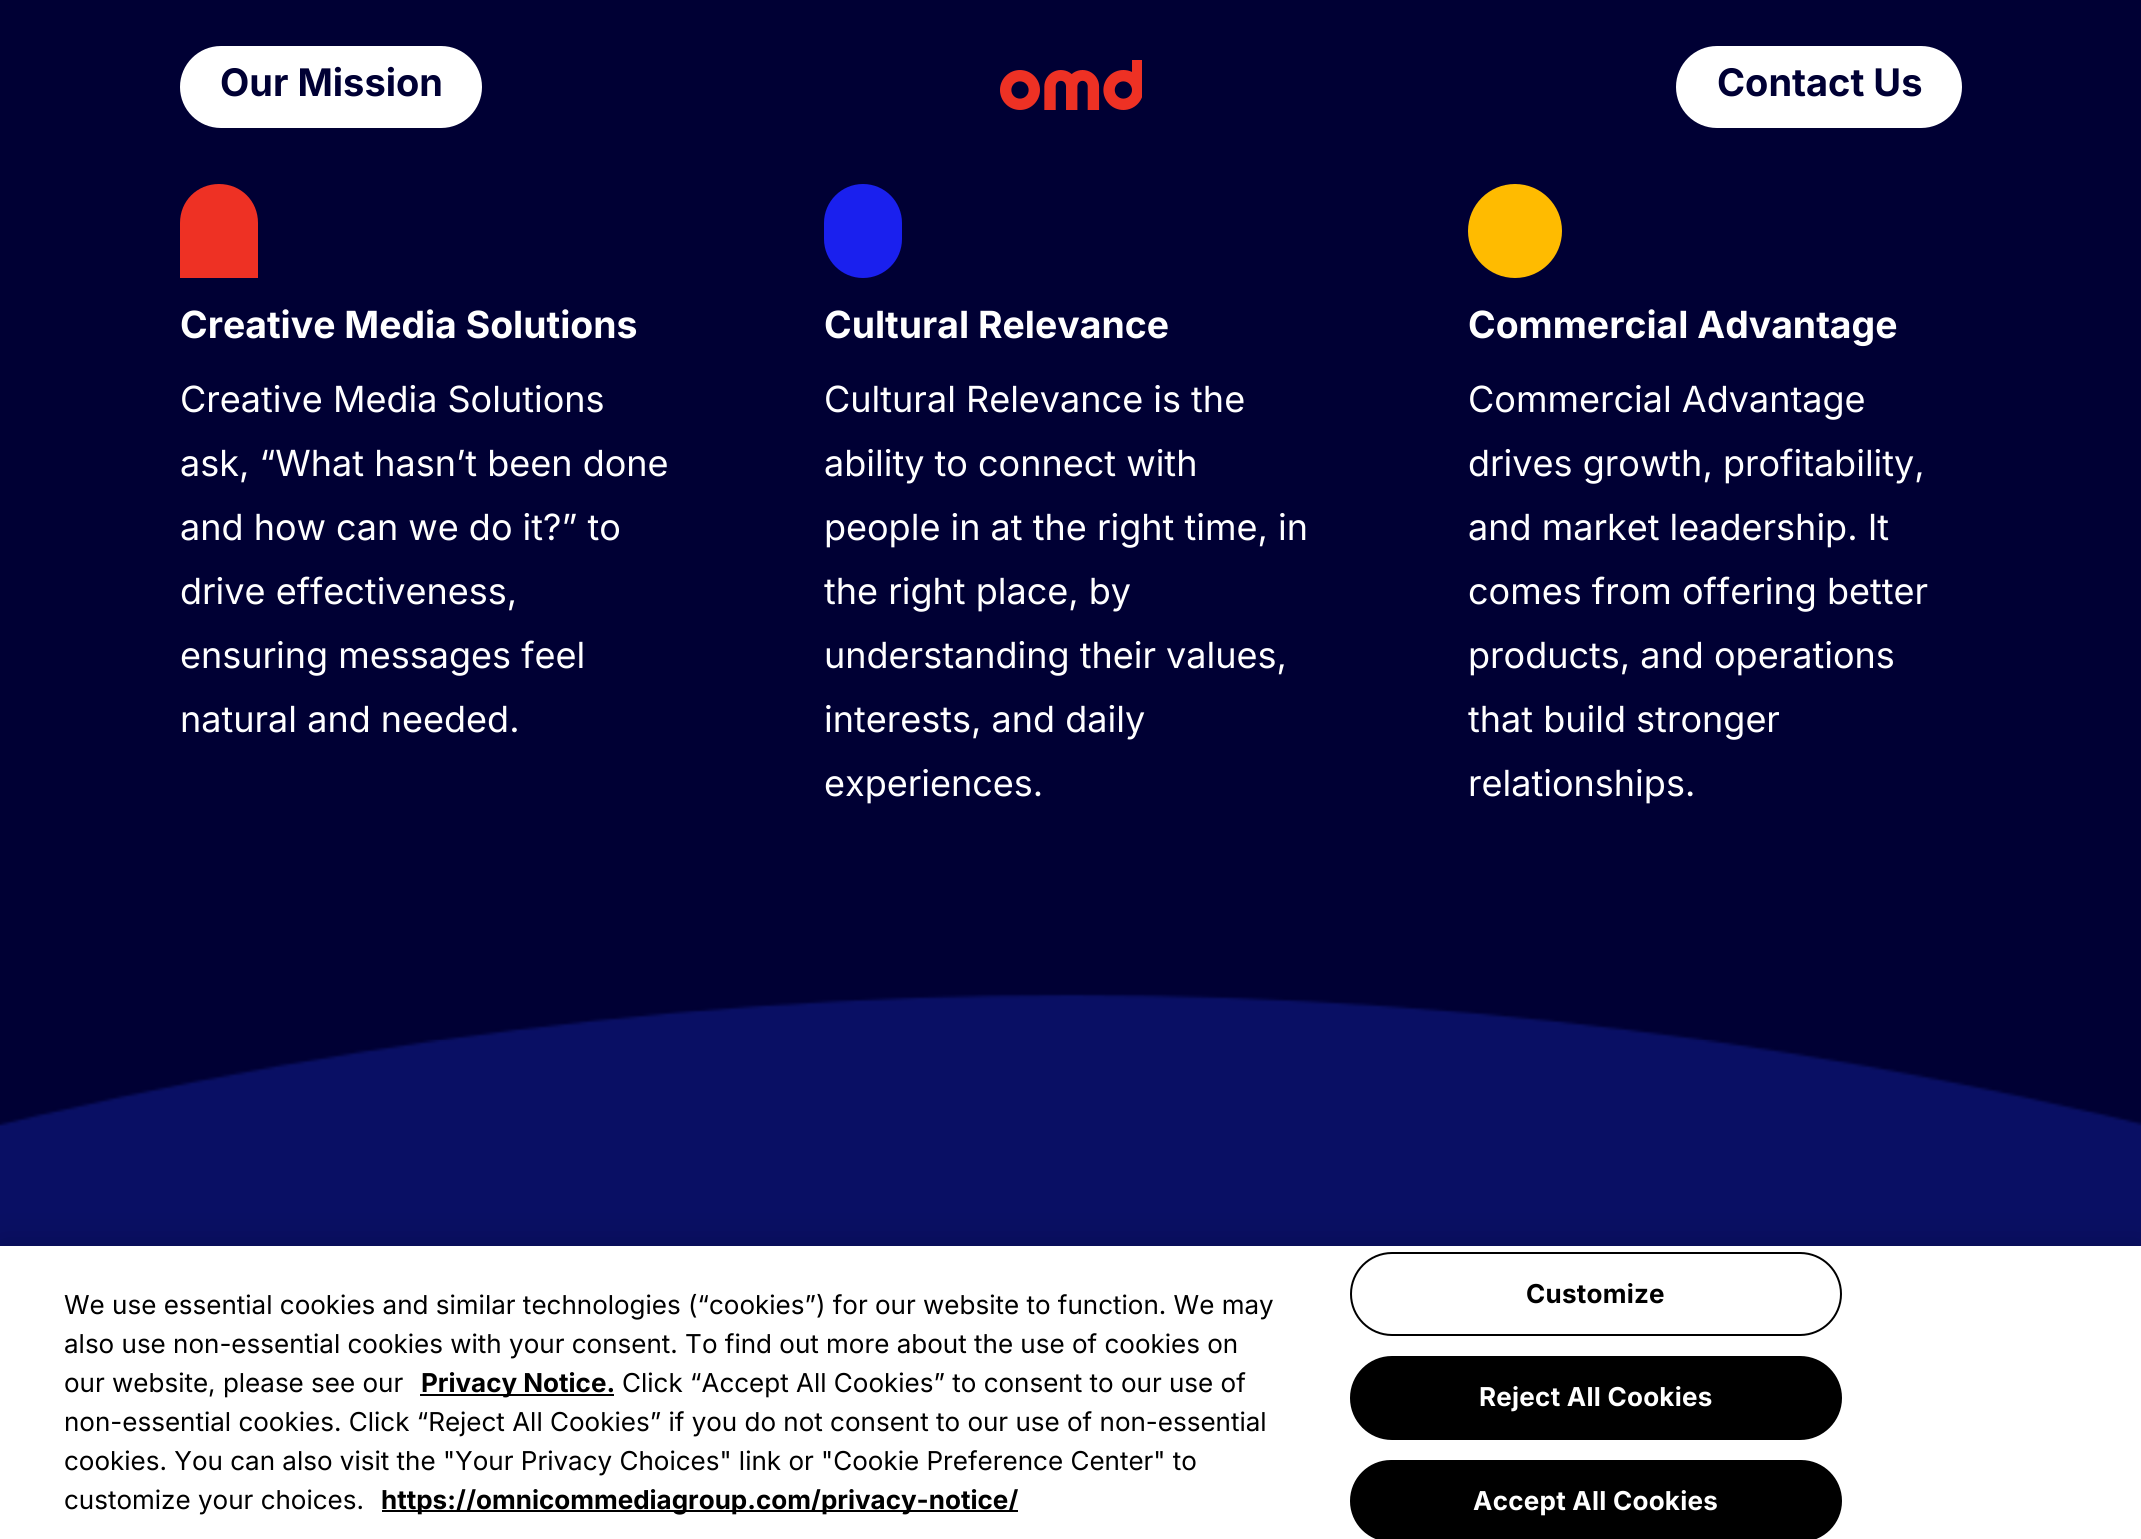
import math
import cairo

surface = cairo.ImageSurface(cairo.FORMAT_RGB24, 2141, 1539)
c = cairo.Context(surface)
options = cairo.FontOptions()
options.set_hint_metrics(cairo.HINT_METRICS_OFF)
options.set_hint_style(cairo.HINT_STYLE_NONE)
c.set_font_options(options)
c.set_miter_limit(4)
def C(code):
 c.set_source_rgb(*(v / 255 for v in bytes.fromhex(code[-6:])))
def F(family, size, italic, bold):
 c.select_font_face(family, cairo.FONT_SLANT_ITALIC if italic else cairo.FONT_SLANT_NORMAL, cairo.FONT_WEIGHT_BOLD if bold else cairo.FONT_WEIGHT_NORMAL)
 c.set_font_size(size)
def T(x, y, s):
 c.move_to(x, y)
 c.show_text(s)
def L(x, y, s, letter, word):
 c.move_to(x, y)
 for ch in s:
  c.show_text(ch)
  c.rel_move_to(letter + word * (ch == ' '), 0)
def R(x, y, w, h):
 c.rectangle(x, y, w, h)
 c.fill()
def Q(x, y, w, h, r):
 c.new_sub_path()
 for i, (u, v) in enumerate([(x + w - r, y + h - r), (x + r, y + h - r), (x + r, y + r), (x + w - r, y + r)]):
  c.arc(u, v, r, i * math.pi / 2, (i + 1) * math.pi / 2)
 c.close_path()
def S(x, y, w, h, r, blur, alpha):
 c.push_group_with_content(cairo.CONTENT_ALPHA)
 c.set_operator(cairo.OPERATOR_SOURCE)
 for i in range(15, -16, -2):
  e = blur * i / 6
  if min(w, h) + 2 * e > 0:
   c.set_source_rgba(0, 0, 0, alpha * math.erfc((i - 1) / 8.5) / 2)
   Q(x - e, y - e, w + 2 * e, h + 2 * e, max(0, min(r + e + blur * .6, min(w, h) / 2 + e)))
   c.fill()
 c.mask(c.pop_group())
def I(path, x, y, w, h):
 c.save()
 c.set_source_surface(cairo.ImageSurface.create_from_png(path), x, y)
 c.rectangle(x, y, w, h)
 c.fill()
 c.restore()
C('000034')
c.paint()
C('ffffff')
Q(180,46,302,82,41)
c.fill()
F('Inter',38,0,1)
C('000034')
T(220,96,'Our Mission')
I('1.png',1000,60,142,50)
C('ffffff')
Q(1676,46,286,82,41)
c.fill()
C('000034')
T(1717,96,'Contact Us')
C('ee3124')
c.new_path()
c.move_to(219,184)
c.curve_to(241,184,258,201,258,223)
c.line_to(258,278)
c.line_to(180,278)
c.line_to(180,223)
c.curve_to(180,201,197,184,219,184)
c.close_path()
c.fill()
F('Inter',37.4,0,1)
C('ffffff')
T(180,338,'Creative Media Solutions')
F('Inter',36,0,0)
T(180,412,'Creative Media Solutions')
T(180,476,'ask, “What hasn’t been done')
T(180,540,'and how can we do it?” to')
T(180,604,'drive effectiveness,')
T(180,668,'ensuring messages feel')
T(180,732,'natural and needed.')
C('1a20ee')
Q(824,184,78,94,39)
c.fill()
F('Inter',37.4,0,1)
C('ffffff')
T(824,338,'Cultural Relevance')
F('Inter',36,0,0)
T(824,412,'Cultural Relevance is the')
T(824,476,'ability to connect with')
T(824,540,'people in at the right time, in')
T(824,604,'the right place, by')
T(824,668,'understanding their values,')
T(824,732,'interests, and daily')
T(824,796,'experiences.')
C('ffbb00')
c.new_path()
c.arc(1515,231,47,0,2 * math.pi)
c.fill()
F('Inter',37.4,0,1)
C('ffffff')
T(1468,338,'Commercial Advantage')
F('Inter',36,0,0)
T(1468,412,'Commercial Advantage')
T(1468,476,'drives growth, profitability,')
T(1468,540,'and market leadership. It')
T(1468,604,'comes from offering better')
T(1468,668,'products, and operations')
T(1468,732,'that build stronger')
T(1468,796,'relationships.')
C('090f64')
R(0,993,2141,253)
I('2.png',0,816,2141,310)
C('000000')
S(0,1246,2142,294,0,18,.2)
C('ffffff')
R(0,1246,2141,293)
F('Inter',26,0,0)
C('000000')
T(64,1314,'We use essential cookies and similar technologies (“cookies”) for our website to function. We may')
T(64,1353,'also use non-essential cookies with your consent. To find out more about the use of cookies on')
T(64,1392,'our website, please see our')
R(420,1394,194,2)
F('Inter',26,0,1)
T(421,1392,'Privacy Notice.')
F('Inter',26,0,0)
T(622,1392,'Click “Accept All Cookies” to consent to our use of')
T(64,1431,'non-essential cookies. Click “Reject All Cookies” if you do not consent to our use of non-essential')
T(64,1470,'cookies. You can also visit the "Your Privacy Choices" link or "Cookie Preference Center" to')
T(64,1509,'customize your choices.')
R(382,1510,636,2)
F('Inter',26,0,1)
T(381,1509,'https://omnicommediagroup.com/privacy-notice/')
Q(1351,1253,490,82,41)
c.stroke()
L(1526,1303,'Customize',.25,0)
Q(1351,1357,490,82,41)
c.fill_preserve()
c.stroke()
C('ffffff')
L(1479,1406,'Reject All Cookies',.25,0)
C('000000')
Q(1351,1461,490,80,40)
c.fill_preserve()
c.stroke()
C('ffffff')
L(1473,1510,'Accept All Cookies',.25,0)
surface.write_to_png('o.png')
